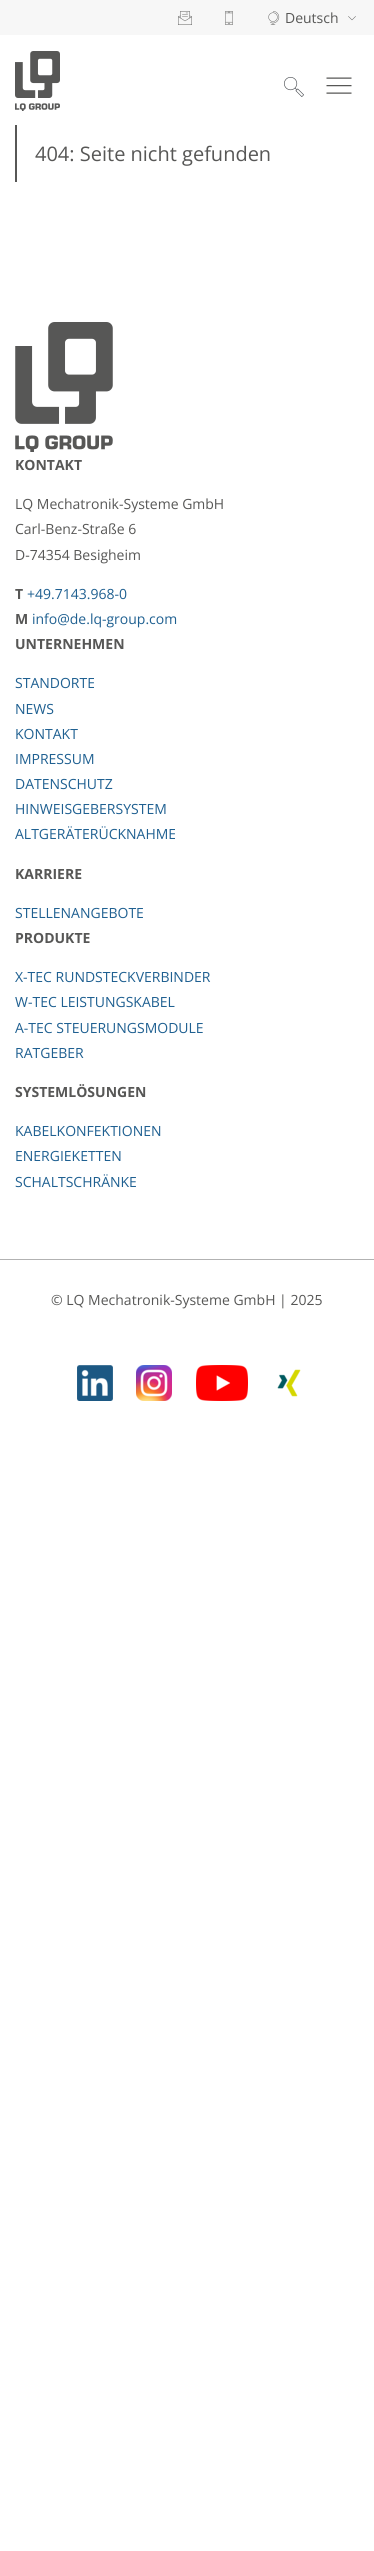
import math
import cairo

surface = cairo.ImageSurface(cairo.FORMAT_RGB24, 374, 2551)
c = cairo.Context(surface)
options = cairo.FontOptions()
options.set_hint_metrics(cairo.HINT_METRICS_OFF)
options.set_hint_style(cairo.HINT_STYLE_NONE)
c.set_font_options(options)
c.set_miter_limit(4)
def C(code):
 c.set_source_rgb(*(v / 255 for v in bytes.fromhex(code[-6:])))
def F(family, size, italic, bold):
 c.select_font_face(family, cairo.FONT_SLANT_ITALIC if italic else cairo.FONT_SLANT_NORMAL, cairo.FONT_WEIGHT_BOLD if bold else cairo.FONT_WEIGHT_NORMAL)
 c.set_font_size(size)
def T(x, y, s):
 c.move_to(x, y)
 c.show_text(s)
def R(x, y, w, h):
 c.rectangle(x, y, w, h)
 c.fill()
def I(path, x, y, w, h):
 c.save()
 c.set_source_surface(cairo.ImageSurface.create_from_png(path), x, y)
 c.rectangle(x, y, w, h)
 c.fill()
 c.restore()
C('ffffff')
c.paint()
C('f7f7f7')
R(0,0,374,35)
I('1.png',178,11,14,14)
I('2.png',225,11,8,14)
I('3.png',268,11,12,14)
F('Open Sans',14,0,0)
C('575756')
T(285,23,'Deutsch')
I('4.png',348,16,8,5)
I('5.png',15,51,45,60)
I('6.png',284,77,20,20)
I('7.png',326,77,26,17)
R(15,125,2,57)
F('Open Sans',20,0,0)
T(35,161,'404: Seite nicht gefunden')
I('8.png',15,322,98,130)
F('Open Sans',14,0,1)
T(15,470,'KONTAKT')
F('Open Sans',14,0,0)
T(15,509,'LQ Mechatronik-Systeme GmbH')
T(15,534,'Carl-Benz-Straße 6')
T(15,560,'D-74354 Besigheim')
F('Open Sans',14,0,1)
T(15,599,'T')
F('Open Sans',14,0,0)
C('1f6091')
T(27,599,'+49.7143.968-0')
F('Open Sans',14,0,1)
C('575756')
T(15,624,'M')
F('Open Sans',14,0,0)
C('1f6091')
T(32,624,'info@de.lq-group.com')
F('Open Sans',14,0,1)
C('575756')
T(15,649,'UNTERNEHMEN')
F('Open Sans',14,0,0)
C('1f6091')
T(15,688,'STANDORTE')
T(15,714,'NEWS')
T(15,739,'KONTAKT')
T(15,764,'IMPRESSUM')
T(15,789,'DATENSCHUTZ')
T(15,814,'HINWEISGEBERSYSTEM')
T(15,839,'ALTGERÄTERÜCKNAHME')
F('Open Sans',14,0,1)
C('575756')
T(15,879,'KARRIERE')
F('Open Sans',14,0,0)
C('1f6091')
T(15,918,'STELLENANGEBOTE')
F('Open Sans',14,0,1)
C('575756')
T(15,943,'PRODUKTE')
F('Open Sans',14,0,0)
C('1f6091')
T(15,982,'X-TEC RUNDSTECKVERBINDER')
T(15,1007,'W-TEC LEISTUNGSKABEL')
T(15,1033,'A-TEC STEUERUNGSMODULE')
T(15,1058,'RATGEBER')
F('Open Sans',14,0,1)
C('575756')
T(15,1097,'SYSTEMLÖSUNGEN')
F('Open Sans',14,0,0)
C('1f6091')
T(15,1136,'KABELKONFEKTIONEN')
T(15,1161,'ENERGIEKETTEN')
T(15,1187,'SCHALTSCHRÄNKE')
C('b2b2b2')
R(0,1259,374,1)
C('575756')
T(51,1305,'© LQ Mechatronik-Systeme GmbH | 2025')
I('9.png',77,1365,36,36)
I('10.png',136,1365,36,36)
I('11.png',196,1365,52,36)
I('12.png',277,1369,24,28)
surface.write_to_png('o.png')
